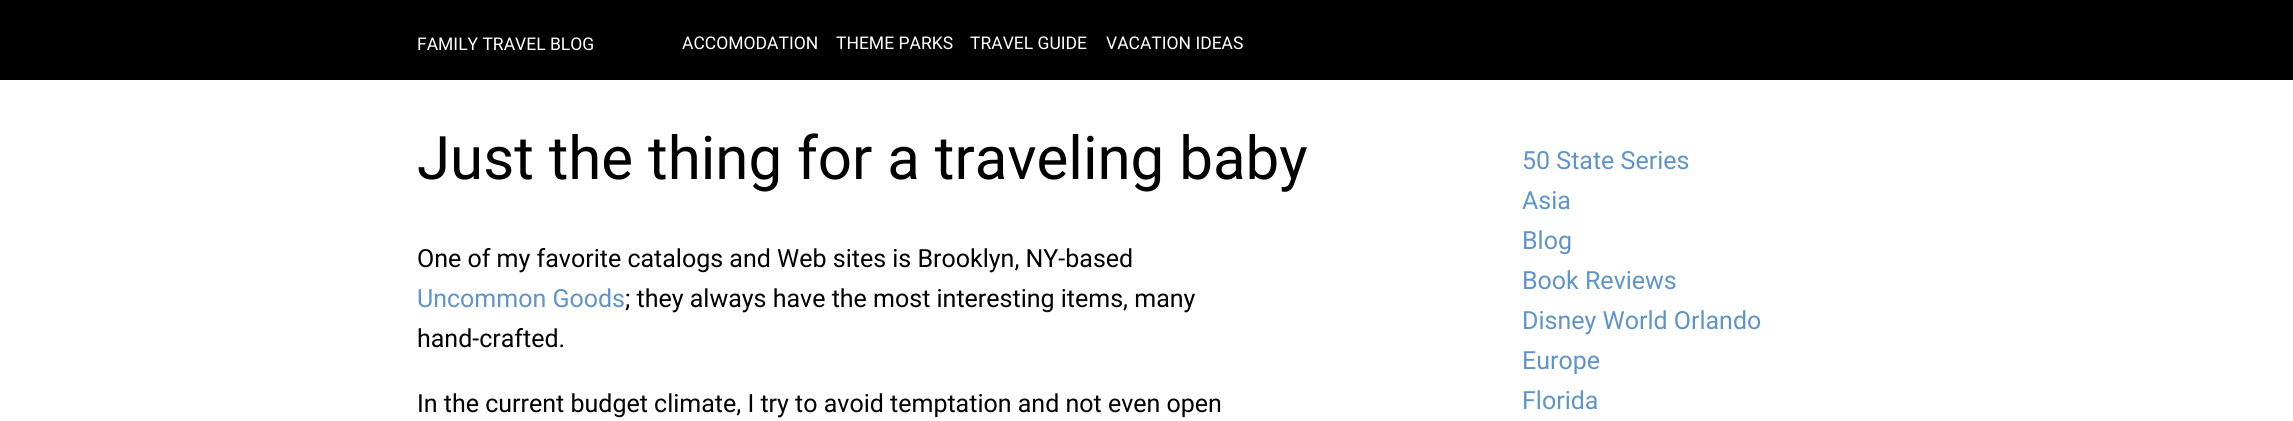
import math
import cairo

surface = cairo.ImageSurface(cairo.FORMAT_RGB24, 2293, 421)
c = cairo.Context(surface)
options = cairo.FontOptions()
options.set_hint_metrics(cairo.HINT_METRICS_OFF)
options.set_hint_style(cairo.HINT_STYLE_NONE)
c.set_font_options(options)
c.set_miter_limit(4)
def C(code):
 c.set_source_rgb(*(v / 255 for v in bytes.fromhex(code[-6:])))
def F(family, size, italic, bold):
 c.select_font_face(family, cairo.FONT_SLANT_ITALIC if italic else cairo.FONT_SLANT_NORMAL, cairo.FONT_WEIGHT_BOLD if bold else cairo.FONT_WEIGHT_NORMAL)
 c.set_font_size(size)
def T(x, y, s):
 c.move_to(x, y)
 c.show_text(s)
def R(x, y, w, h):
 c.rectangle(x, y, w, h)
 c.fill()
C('ffffff')
c.paint()
C('000000')
R(0,0,2293,80)
F('Roboto',17.5,0,0)
C('ffffff')
T(417,50,'FAMILY TRAVEL BLOG')
T(682,49,'ACCOMODATION')
T(836,49,'THEME PARKS')
T(970,49,'TRAVEL GUIDE')
T(1106,49,'VACATION IDEAS')
F('Roboto',60,0,0)
C('000000')
T(417,179,'Just the thing for a traveling baby')
F('Roboto',25,0,0)
T(417,267,'One of my favorite catalogs and Web sites is Brooklyn, NY-based')
C('5f94cb')
T(417,307,'Uncommon Goods')
C('000000')
T(625,307,'; they always have the most interesting items, many')
T(417,347,'hand-crafted.')
T(417,412,'In the current budget climate, I try to avoid temptation and not even open')
C('5f94cb')
T(1522,169,'50 State Series')
T(1522,209,'Asia')
T(1522,249,'Blog')
T(1522,289,'Book Reviews')
T(1522,329,'Disney World Orlando')
T(1522,369,'Europe')
T(1522,409,'Florida')
surface.write_to_png('o.png')
